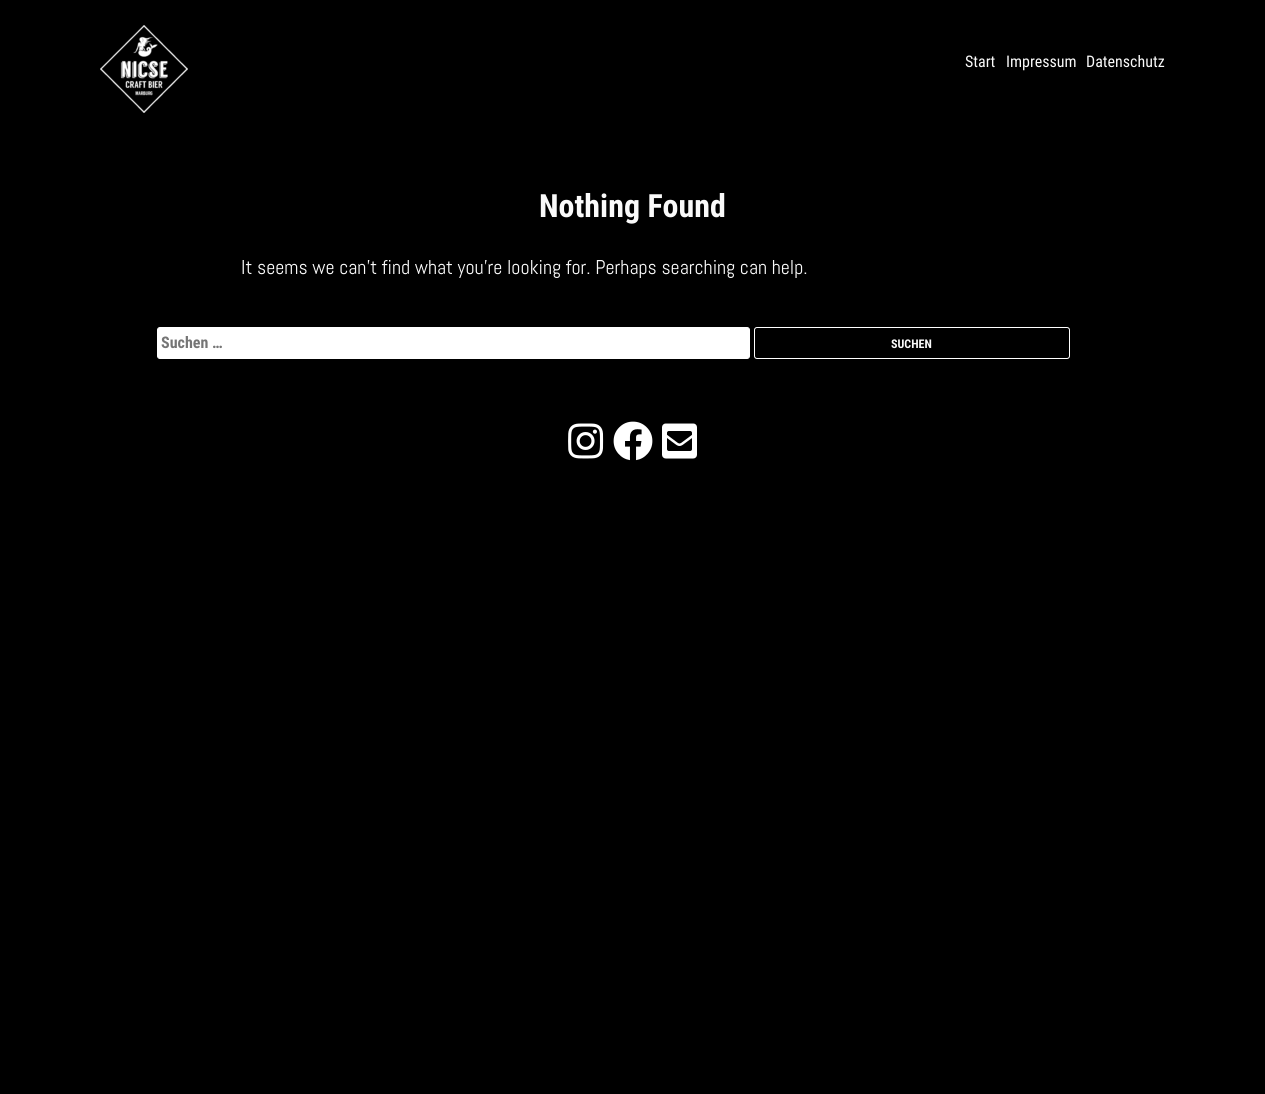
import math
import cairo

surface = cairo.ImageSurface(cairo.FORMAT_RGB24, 1265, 1094)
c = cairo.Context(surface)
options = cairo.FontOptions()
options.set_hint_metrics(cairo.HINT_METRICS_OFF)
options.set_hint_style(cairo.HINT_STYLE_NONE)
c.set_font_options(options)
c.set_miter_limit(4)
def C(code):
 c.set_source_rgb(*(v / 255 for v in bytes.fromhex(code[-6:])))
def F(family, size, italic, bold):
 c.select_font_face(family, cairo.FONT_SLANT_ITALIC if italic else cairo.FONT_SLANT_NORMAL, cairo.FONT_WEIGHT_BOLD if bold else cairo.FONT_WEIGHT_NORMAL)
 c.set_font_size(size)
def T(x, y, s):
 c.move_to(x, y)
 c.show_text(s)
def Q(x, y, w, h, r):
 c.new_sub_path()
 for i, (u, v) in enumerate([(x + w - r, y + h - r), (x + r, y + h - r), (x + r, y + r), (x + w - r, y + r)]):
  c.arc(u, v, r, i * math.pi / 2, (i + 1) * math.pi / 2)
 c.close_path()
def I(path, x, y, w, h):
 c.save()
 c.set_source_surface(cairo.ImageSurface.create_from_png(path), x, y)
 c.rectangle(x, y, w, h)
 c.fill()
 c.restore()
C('000000')
c.paint()
I('1.png',100,25,88,88)
F('Roboto Condensed',16,0,0)
C('fafafa')
T(965,67,'Start')
T(1006,67,'Impressum')
T(1086,67,'Datenschutz')
F('Roboto Condensed',32,0,1)
T(539,217,'Nothing Found')
F('Abel',20,0,0)
T(241,274,'It seems we can’t find what you’re looking for. Perhaps searching can help.')
C('ffffff')
Q(157.5,327.5,592,31,2.5)
c.fill_preserve()
c.set_line_width(1)
c.stroke()
F('Roboto Condensed',16,0,1)
C('757575')
T(161,348,'Suchen …')
Q(754.5,327.5,315,31,2.5)
C('ffffff')
c.stroke()
F('Roboto Condensed',12,0,1)
C('fafafa')
T(891,348,'SUCHEN')
I('2.png',568,423,36,36)
I('3.png',613,421,40,40)
I('4.png',662,423,35,36)
surface.write_to_png('o.png')
